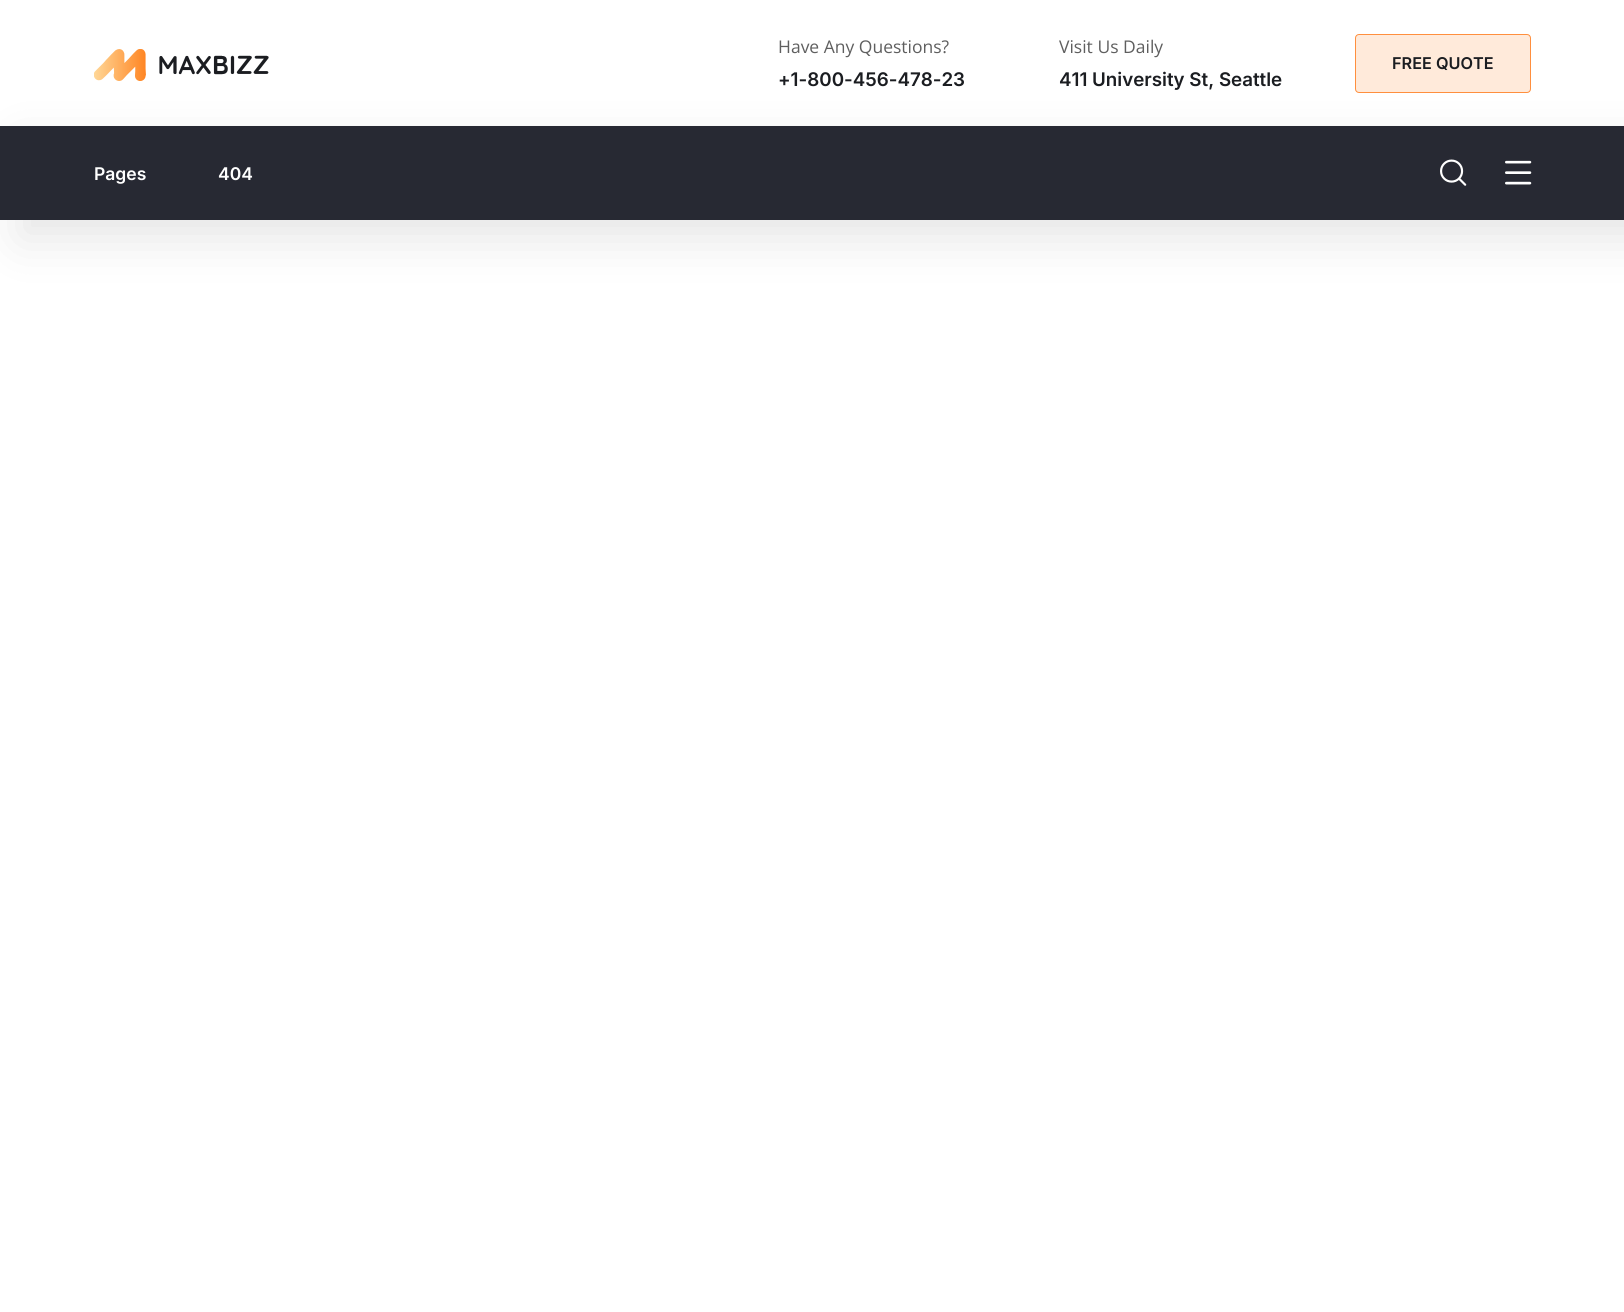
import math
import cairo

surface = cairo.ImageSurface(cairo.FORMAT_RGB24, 1624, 1312)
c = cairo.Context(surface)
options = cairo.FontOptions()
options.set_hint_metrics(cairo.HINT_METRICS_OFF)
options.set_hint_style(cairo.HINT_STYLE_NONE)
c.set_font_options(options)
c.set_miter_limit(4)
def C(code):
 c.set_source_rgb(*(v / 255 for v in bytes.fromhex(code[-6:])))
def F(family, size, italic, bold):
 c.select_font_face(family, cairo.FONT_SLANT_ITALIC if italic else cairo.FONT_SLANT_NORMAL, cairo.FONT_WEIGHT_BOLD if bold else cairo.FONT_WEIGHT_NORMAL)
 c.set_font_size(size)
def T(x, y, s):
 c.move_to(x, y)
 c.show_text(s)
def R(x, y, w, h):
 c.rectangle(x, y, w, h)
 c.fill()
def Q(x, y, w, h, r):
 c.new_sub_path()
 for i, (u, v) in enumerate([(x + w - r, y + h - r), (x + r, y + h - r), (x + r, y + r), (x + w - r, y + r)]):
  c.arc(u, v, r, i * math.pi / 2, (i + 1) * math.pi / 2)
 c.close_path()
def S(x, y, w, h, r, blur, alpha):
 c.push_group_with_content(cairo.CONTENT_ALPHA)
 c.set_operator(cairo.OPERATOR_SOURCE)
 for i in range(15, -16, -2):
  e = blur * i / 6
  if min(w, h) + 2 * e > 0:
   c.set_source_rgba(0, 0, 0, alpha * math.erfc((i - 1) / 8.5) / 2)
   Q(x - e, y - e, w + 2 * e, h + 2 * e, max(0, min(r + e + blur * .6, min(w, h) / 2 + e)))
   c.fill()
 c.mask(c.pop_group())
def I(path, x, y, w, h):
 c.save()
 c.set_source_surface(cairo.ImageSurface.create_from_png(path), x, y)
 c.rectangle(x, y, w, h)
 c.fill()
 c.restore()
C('ffffff')
c.paint()
I('1.png',94,49,175,32)
F('Open Sans',17.5,0,0)
C('5f5f5f')
T(778,53,'Have Any Questions?')
F('Inter SemiBold',18.75,0,0)
C('1b1d21')
T(778,86,'+1-800-456-478-23')
F('Open Sans',17.5,0,0)
C('5f5f5f')
T(1059,53,'Visit Us Daily')
F('Inter SemiBold',18.75,0,0)
C('1b1d21')
T(1059,86,'411 University St, Seattle')
C('ffeada')
Q(1355.5,34.5,175,58,3.5)
c.fill_preserve()
C('ff8f3e')
c.set_line_width(1)
c.stroke()
F('Inter SemiBold',16.25,0,0)
C('1b1d21')
T(1392,69,'FREE QUOTE')
C('000000')
S(19,145,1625,94,0,24,.1)
C('272933')
R(0,126,1624,94)
F('Inter SemiBold',17.5,0,0)
C('ffffff')
T(94,180,'Pages')
T(218,180,'404')
I('2.png',1440,159,27,27)
I('3.png',1505,160,27,25)
surface.write_to_png('o.png')
